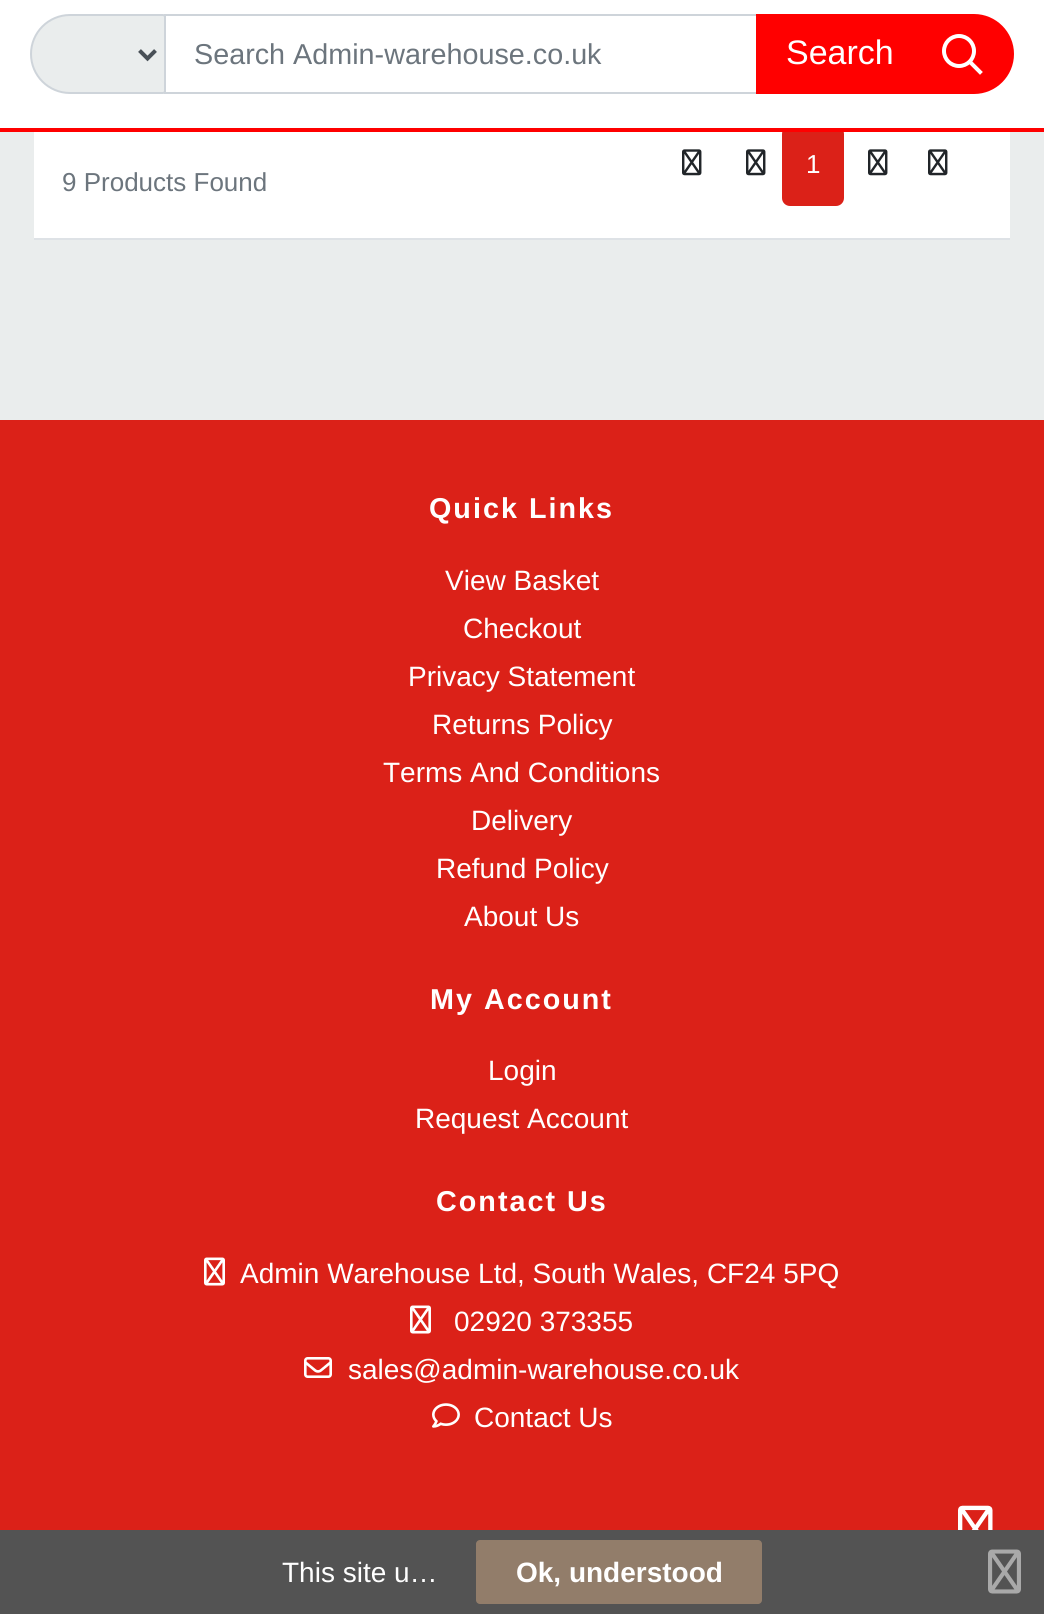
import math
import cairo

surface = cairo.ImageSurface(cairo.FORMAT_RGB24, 1044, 1614)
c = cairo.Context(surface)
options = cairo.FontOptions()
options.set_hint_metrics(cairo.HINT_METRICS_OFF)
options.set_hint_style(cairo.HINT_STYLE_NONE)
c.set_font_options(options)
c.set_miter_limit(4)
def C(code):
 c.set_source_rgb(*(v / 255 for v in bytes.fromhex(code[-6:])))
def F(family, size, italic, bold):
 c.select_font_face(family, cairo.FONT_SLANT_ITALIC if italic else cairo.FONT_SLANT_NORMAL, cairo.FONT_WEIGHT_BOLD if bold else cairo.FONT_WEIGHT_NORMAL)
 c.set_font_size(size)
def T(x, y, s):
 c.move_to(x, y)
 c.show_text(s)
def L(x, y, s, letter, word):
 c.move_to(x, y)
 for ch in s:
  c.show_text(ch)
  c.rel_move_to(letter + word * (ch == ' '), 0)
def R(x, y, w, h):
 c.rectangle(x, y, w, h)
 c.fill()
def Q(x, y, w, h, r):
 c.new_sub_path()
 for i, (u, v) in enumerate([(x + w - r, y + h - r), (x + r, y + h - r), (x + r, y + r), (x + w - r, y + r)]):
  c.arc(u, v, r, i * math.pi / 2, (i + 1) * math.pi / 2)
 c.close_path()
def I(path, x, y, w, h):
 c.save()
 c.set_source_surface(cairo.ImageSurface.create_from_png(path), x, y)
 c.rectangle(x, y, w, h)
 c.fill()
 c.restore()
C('eaeded')
c.paint()
C('ffffff')
R(34,132,976,106)
C('db2118')
Q(783,127,60,78,7)
c.fill_preserve()
c.stroke()
C('ffffff')
R(0,0,1044,128)
C('ff0000')
R(0,128,1044,4)
C('eaeded')
c.new_path()
c.move_to(70,15)
c.line_to(163,15)
c.curve_to(164,15,165,16,165,17)
c.line_to(165,91)
c.curve_to(165,92,164,93,163,93)
c.line_to(70,93)
c.curve_to(48.5,93,31,75.5,31,54)
c.curve_to(31,32.5,48.5,15,70,15)
c.close_path()
c.fill_preserve()
C('ced4da')
c.stroke()
c.new_path()
c.move_to(139.5,50.5)
c.line_to(147.5,58.5)
c.line_to(155.5,50.5)
C('495057')
c.set_line_width(4)
c.stroke()
c.rectangle(165,15,592,78)
C('ced4da')
c.set_line_width(2)
c.stroke()
F('Liberation Sans',28.75,0,0)
C('6c757d')
T(194,64,'Search Admin-warehouse.co.uk')
C('ff0000')
c.new_path()
c.move_to(756,14)
c.line_to(974,14)
c.curve_to(996,14,1014,32,1014,54)
c.curve_to(1014,76,996,94,974,94)
c.line_to(756,94)
c.close_path()
c.fill()
F('Liberation Sans',34,0,0)
C('ffffff')
T(786,64,'Search')
c.new_path()
c.move_to(980,72)
c.line_to(970,62)
c.set_line_width(4)
c.set_line_cap(cairo.LINE_CAP_SQUARE)
c.stroke()
c.arc(959,51,15,0,2 * math.pi)
c.set_line_cap(cairo.LINE_CAP_BUTT)
c.stroke()
C('dee2e6')
R(34,238,976,2)
I('1.png',682,149,20,27)
I('1.png',746,149,20,27)
F('Liberation Sans',26,0,0)
C('ffffff')
T(806,173,'1')
I('1.png',868,149,20,27)
I('1.png',928,149,20,27)
C('6c757d')
T(62,191,'9 Products Found')
C('db2118')
R(0,420,1044,1110)
F('Liberation Sans',28.75,0,1)
C('ffffff')
L(429,518,'Quick Links',2,0)
F('Liberation Sans',28,0,0)
T(445,590,'View Basket')
T(463,638,'Checkout')
T(408,686,'Privacy Statement')
T(432,734,'Returns Policy')
T(383,782,'Terms And Conditions')
T(471,830,'Delivery')
T(436,878,'Refund Policy')
T(464,926,'About Us')
F('Liberation Sans',28.75,0,1)
L(430,1009,'My Account',2,0)
F('Liberation Sans',28,0,0)
T(488,1080,'Login')
T(415,1128,'Request Account')
F('Liberation Sans',28.75,0,1)
L(436,1211,'Contact Us',2,0)
I('2.png',204,1257,21,29)
F('Liberation Sans',28,0,0)
T(240,1283,'Admin Warehouse Ltd, South Wales, CF24 5PQ')
I('2.png',410,1305,21,29)
T(454,1331,'02920 373355')
I('3.png',304,1357,28,21)
T(348,1379,'sales@admin-warehouse.co.uk')
I('4.png',432,1403,28,25)
T(474,1427,'Contact Us')
I('5.png',958,1505,35,25)
C('535353')
R(0,1530,1044,84)
C('ffffff')
T(282,1582,'This site u…')
C('927d6a')
Q(476,1540,286,64,4)
c.fill()
F('Liberation Sans',28,0,1)
C('ffffff')
T(516,1582,'Ok, understood')
I('6.png',988,1549,33,45)
surface.write_to_png('o.png')
